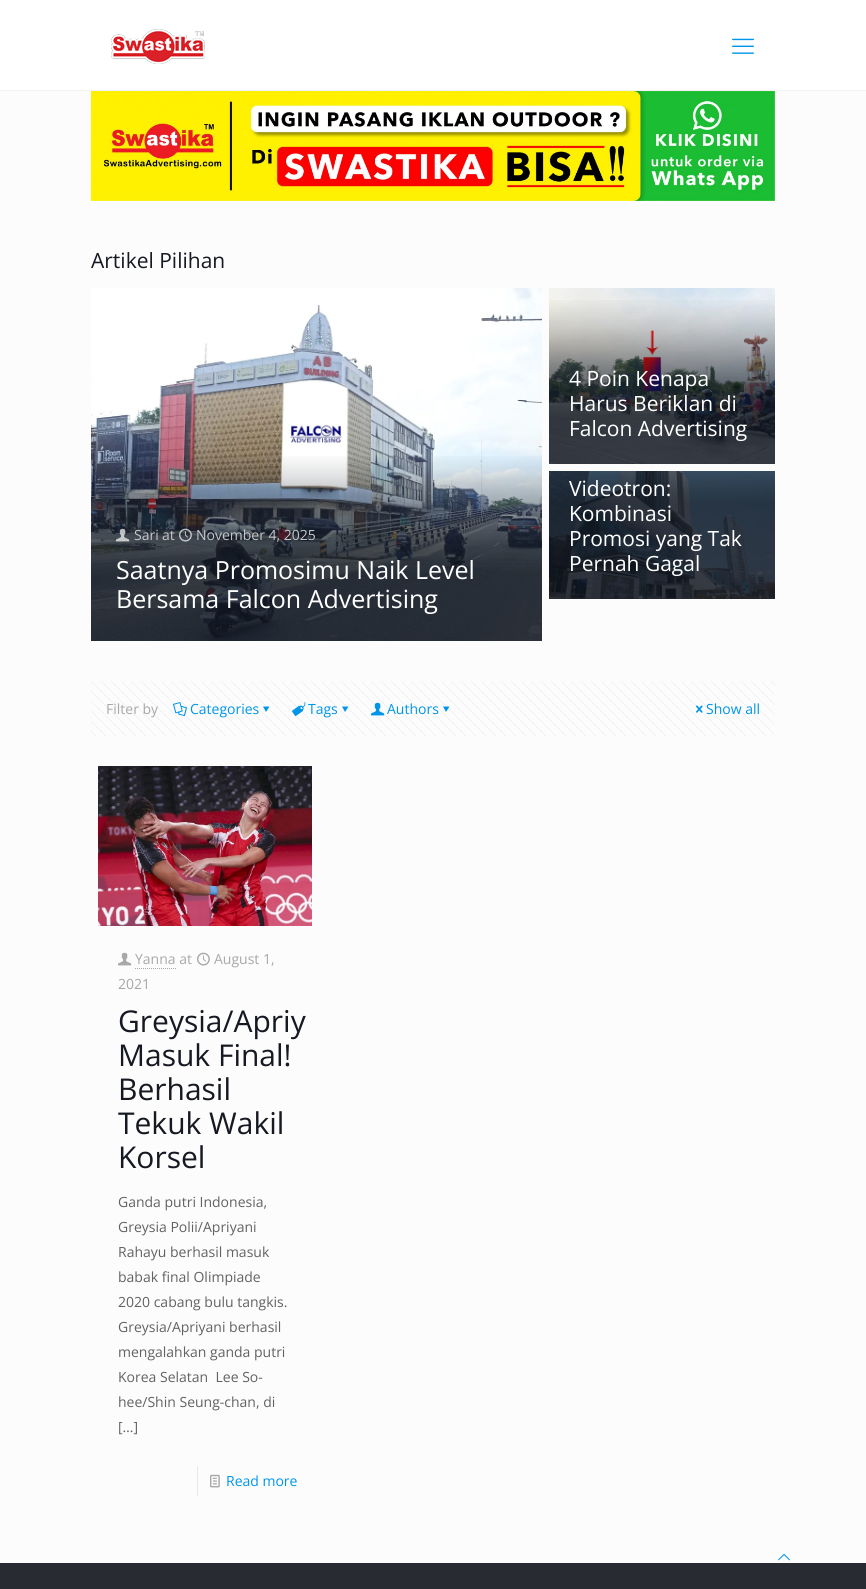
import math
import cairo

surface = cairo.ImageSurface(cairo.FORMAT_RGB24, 866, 1589)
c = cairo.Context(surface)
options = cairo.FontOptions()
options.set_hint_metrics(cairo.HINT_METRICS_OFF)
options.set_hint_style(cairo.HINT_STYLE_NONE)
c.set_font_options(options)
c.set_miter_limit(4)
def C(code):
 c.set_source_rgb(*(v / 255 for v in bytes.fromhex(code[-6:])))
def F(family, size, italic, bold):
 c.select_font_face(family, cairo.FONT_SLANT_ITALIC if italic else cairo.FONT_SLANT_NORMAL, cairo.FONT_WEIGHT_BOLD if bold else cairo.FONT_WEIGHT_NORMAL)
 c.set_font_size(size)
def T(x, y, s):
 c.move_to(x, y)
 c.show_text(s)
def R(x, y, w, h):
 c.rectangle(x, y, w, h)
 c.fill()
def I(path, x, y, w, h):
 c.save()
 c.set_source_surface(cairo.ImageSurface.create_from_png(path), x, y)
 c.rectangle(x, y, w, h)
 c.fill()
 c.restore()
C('fcfcfc')
c.paint()
C('ffffff')
R(0,0,866,90)
C('f2f2f2')
R(0,90,866,1)
I('1.png',111,29,94,35)
I('2.png',732,38,22,16)
I('3.png',91,91,684,110)
F('Open Sans',21,0,0)
C('161922')
T(91,268,'Artikel Pilihan')
I('4.png',549,288,226,176)
I('5.png',549,300,226,164)
C('ffffff')
T(569,386,'4 Poin Kenapa')
T(569,411,'Harus Beriklan di')
T(569,436,'Falcon Advertising')
I('6.png',91,288,451,353)
I('7.png',91,456,451,185)
I('8.png',116,528,14,14)
F('Open Sans',14,0,0)
C('c4c6c9')
T(134,540,'Sari')
T(162,540,'at')
I('9.png',179,528,13,14)
T(196,540,'November 4, 2025')
F('Open Sans',25,0,0)
C('ffffff')
T(116,579,'Saatnya Promosimu Naik Level')
T(116,608,'Bersama Falcon Advertising')
I('10.png',549,471,226,128)
I('11.png',549,471,226,128)
F('Open Sans',21,0,0)
T(569,496,'Videotron:')
T(569,521,'Kombinasi')
T(569,546,'Promosi yang Tak')
T(569,571,'Pernah Gagal')
I('12.png',91,681,684,55)
F('Open Sans',14,0,0)
C('a8a8a8')
T(106,714,'Filter by')
I('13.png',173,702,14,15)
C('0095eb')
T(190,714,'Categories')
c.new_path()
c.move_to(269.5,706.5)
c.line_to(266,712)
c.line_to(263,706.5)
c.close_path()
c.fill()
I('14.png',292,702,14,14)
T(308,714,'Tags')
c.new_path()
c.move_to(348.5,706.5)
c.line_to(345,712)
c.line_to(342,706.5)
c.close_path()
c.fill()
I('15.png',371,702,14,14)
T(387,714,'Authors')
c.new_path()
c.move_to(449.5,706.5)
c.line_to(446,712)
c.line_to(443,706.5)
c.close_path()
c.fill()
I('16.png',696,705,7,8)
T(706,714,'Show all')
I('17.png',98,766,214,160)
I('18.png',197,952,13,14)
C('a8a8a8')
T(214,964,'August 1,')
T(118,989,'2021')
I('19.png',118,952,14,14)
T(135,964,'Yanna at')
c.new_path()
c.move_to(135,968.5)
c.line_to(176,968.5)
c.set_line_width(1)
c.set_dash([1,1])
c.stroke()
F('Open Sans',30,0,0)
C('161922')
T(118,1032,'Greysia/Apriy')
T(118,1066,'Masuk Final!')
T(118,1100,'Berhasil')
T(118,1134,'Tekuk Wakil')
T(118,1168,'Korsel')
F('Open Sans',14,0,0)
C('626262')
T(118,1207,'Ganda putri Indonesia,')
T(118,1232,'Greysia Polii/Apriyani')
T(118,1257,'Rahayu berhasil masuk')
T(118,1282,'babak final Olimpiade')
T(118,1307,'2020 cabang bulu tangkis.')
T(118,1332,'Greysia/Apriyani berhasil')
T(118,1357,'mengalahkan ganda putri')
T(118,1382,'Korea Selatan  Lee So-')
T(118,1407,'hee/Shin Seung-chan, di')
T(118,1432,'[…]')
C('e8e8e8')
R(197,1466,1,30)
I('20.png',210,1474,10,14)
C('0095eb')
T(226,1486,'Read more')
C('292b33')
R(0,1563,866,26)
I('21.png',778,1553,12,8)
surface.write_to_png('o.png')
